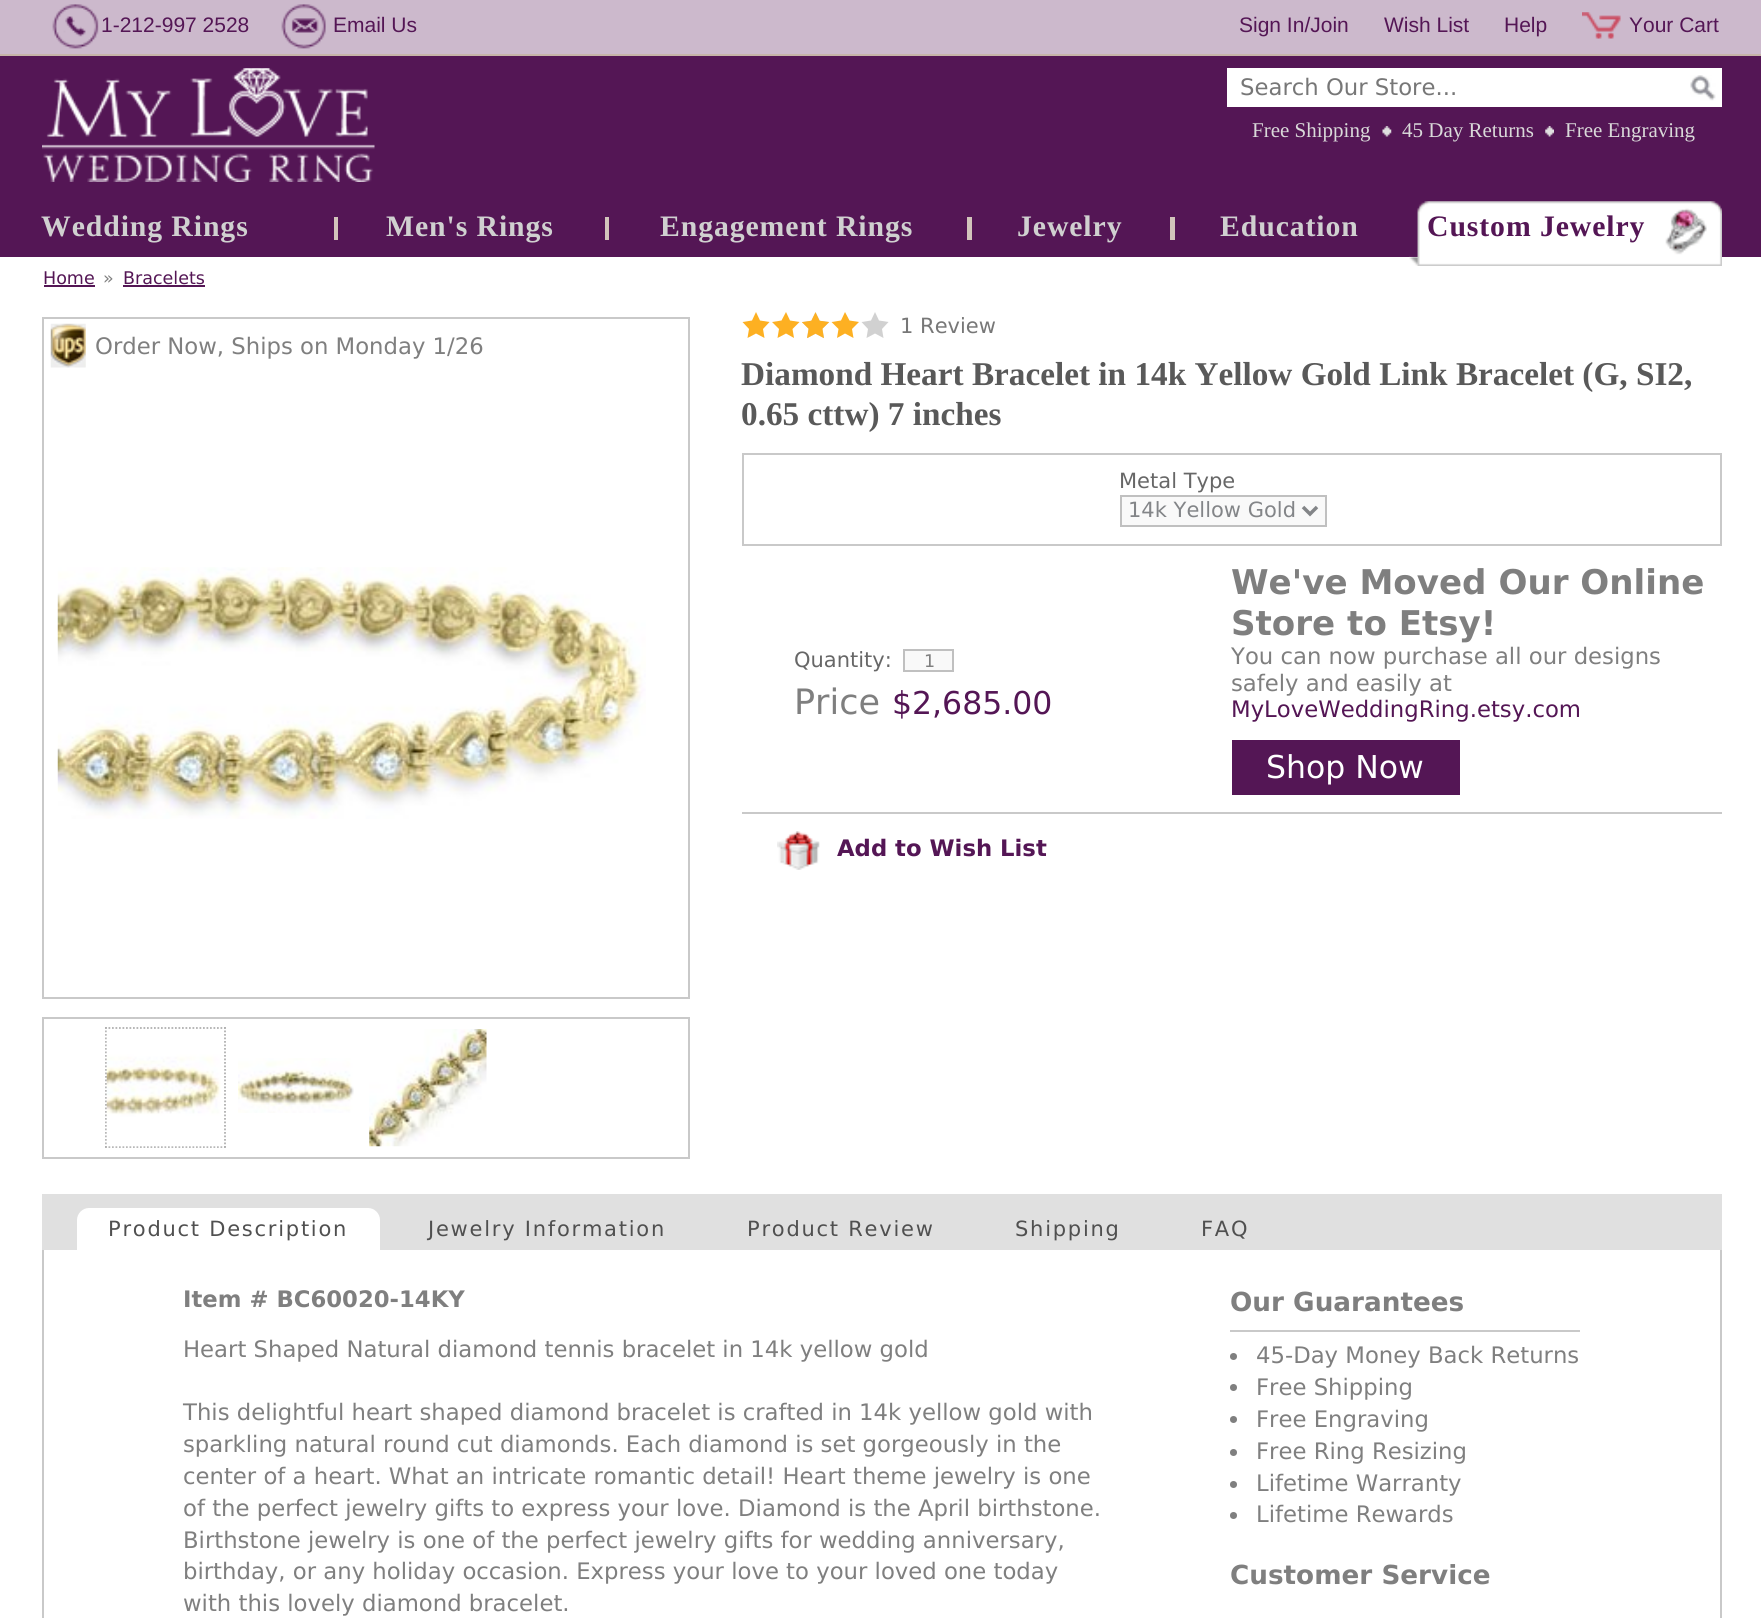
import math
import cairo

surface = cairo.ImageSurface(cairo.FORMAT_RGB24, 1761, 1618)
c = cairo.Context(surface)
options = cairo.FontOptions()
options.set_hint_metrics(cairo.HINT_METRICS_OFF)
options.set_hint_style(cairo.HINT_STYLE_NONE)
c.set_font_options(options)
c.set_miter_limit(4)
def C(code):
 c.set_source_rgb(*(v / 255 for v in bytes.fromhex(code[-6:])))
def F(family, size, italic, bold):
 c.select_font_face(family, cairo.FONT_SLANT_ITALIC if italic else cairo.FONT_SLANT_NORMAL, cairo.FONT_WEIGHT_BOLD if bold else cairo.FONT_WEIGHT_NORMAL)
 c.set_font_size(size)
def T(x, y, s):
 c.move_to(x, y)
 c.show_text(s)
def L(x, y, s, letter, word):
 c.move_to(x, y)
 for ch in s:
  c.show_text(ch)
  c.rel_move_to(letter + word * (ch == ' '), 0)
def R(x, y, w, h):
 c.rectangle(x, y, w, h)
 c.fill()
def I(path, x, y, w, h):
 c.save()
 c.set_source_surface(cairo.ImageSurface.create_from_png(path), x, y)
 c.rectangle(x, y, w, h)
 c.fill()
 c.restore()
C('ffffff')
c.paint()
C('ccb9cc')
R(0,0,1761,54)
C('c6b4a8')
R(0,54,1761,2)
I('1.png',52,4,47,45)
F('Liberation Sans',21,0,0)
C('541655')
T(101,32,'1-212-997 2528')
I('2.png',281,4,45,45)
T(333,32,'Email Us')
T(1239,32,'Sign In/Join')
T(1384,32,'Wish List')
T(1504,32,'Help')
I('3.png',1582,12,39,27)
T(1629,32,'Your Cart')
R(0,56,1761,201)
I('4.png',42,68,333,114)
C('ffffff')
R(1227,68,495,39)
F('DejaVu Sans',22.75,0,0)
C('777777')
T(1240,95,'Search Our Store...')
I('5.png',1690,75,26,26)
F('Liberation Serif',21,0,0)
C('d9d9d9')
T(1252,137,'Free Shipping')
I('6.png',1382,126,10,11)
T(1402,137,'45 Day Returns')
I('7.png',1545,126,9,11)
T(1565,137,'Free Engraving')
F('Liberation Serif',29.75,0,1)
C('d0d0d0')
L(41,236,'Wedding Rings',.9,0)
C('d2c4bb')
R(334,217,4,23)
C('d0d0d0')
L(386,236,'Men\'s Rings',.9,0)
C('d2c4bb')
R(605,217,4,23)
C('d0d0d0')
L(660,236,'Engagement Rings',.9,0)
C('d2c4bb')
R(967,217,5,23)
C('d0d0d0')
L(1017,236,'Jewelry',.9,0)
C('d2c4bb')
R(1170,217,5,23)
C('d0d0d0')
L(1220,236,'Education',.9,0)
I('8.png',1409,201,313,65)
C('541655')
L(1427,236,'Custom Jewelry',.9,0)
F('DejaVu Sans',17.5,0,0)
T(43,284,'Home')
R(44,285,51,2)
C('7f7f7f')
T(103,284,'»')
C('541655')
T(123,284,'Bracelets')
R(123,285,82,2)
c.rectangle(43,318,646,680)
C('c9c9c9')
c.stroke()
I('9.png',50,323,36,45)
F('DejaVu Sans',22.75,0,0)
C('7f7f7f')
T(95,354,'Order Now, Ships on Monday 1/26')
I('10.png',57,567,589,252)
c.rectangle(43,1018,646,140)
C('c9c9c9')
c.stroke()
c.new_path()
c.move_to(105,1028)
c.line_to(226,1028)
C('b0b0b0')
c.set_line_width(1.8)
c.set_dash([1.75,1.75])
c.stroke()
c.new_path()
c.move_to(225,1027)
c.line_to(225,1148)
c.stroke()
c.new_path()
c.move_to(105,1147)
c.line_to(226,1147)
c.stroke()
c.new_path()
c.move_to(106,1027)
c.line_to(106,1148)
c.stroke()
I('11.png',106,1030,117,117)
I('12.png',238,1058,116,55)
I('13.png',369,1029,118,118)
C('fdb022')
c.new_path()
c.move_to(756,312)
c.line_to(760,320.5)
c.line_to(769.5,322)
c.line_to(763,329)
c.line_to(764.5,338)
c.line_to(756,333.5)
c.line_to(747.5,338)
c.line_to(749,329)
c.line_to(742.5,322)
c.line_to(752,320.5)
c.close_path()
c.move_to(786,312)
c.line_to(790,320.5)
c.line_to(799.5,322)
c.line_to(792.5,329)
c.line_to(794,338)
c.line_to(786,333.5)
c.line_to(777.5,338)
c.line_to(779,329)
c.line_to(772,322)
c.line_to(781.5,320.5)
c.close_path()
c.fill()
I('14.png',802,312,27,26)
I('15.png',802,312,28,27)
c.new_path()
c.move_to(845,312)
c.line_to(849.5,320.5)
c.line_to(859,322)
c.line_to(852,329)
c.line_to(853.5,338)
c.line_to(845,333.5)
c.line_to(837,338)
c.line_to(838.5,329)
c.line_to(831.5,322)
c.line_to(841,320.5)
c.close_path()
c.fill()
C('d1d1d1')
c.new_path()
c.move_to(875,312)
c.line_to(879,320.5)
c.line_to(888.5,322)
c.line_to(882,329)
c.line_to(883.5,338)
c.line_to(875,333.5)
c.line_to(866.5,338)
c.line_to(868,329)
c.line_to(861.5,322)
c.line_to(871,320.5)
c.close_path()
c.fill()
F('DejaVu Sans',21,0,0)
C('777777')
T(900,333,'1 Review')
F('Liberation Serif',33.25,0,1)
C('595959')
T(741,385,'Diamond Heart Bracelet in 14k Yellow Gold Link Bracelet (G, SI2,')
T(741,425,'0.65 cttw) 7 inches')
c.rectangle(743,454,978,91)
C('c9c9c9')
c.set_line_width(2)
c.set_dash([])
c.stroke()
F('DejaVu Sans',21,0,0)
C('676767')
T(1119,488,'Metal Type')
C('f9f9f9')
c.rectangle(1121,496,205,30)
c.fill_preserve()
C('c0c0c0')
c.stroke()
c.new_path()
c.move_to(1303,507)
c.line_to(1310,514)
c.line_to(1317,507)
C('838588')
c.set_line_width(3.5)
c.stroke()
T(1128,517,'14k Yellow Gold')
C('676767')
T(794,667,'Quantity:')
C('f9f9f9')
c.rectangle(904,650,49,21)
c.fill_preserve()
C('c0c0c0')
c.set_line_width(2)
c.stroke()
F('DejaVu Sans',17.5,0,0)
C('7f7f7f')
T(924,667,'1')
F('DejaVu Sans',35,0,0)
T(794,714,'Price')
F('DejaVu Sans',31.5,0,0)
C('541655')
T(892,714,'$2,685.00')
F('DejaVu Sans',34.1,0,1)
C('7f7f7f')
T(1231,594,'We\'ve Moved Our Online')
T(1231,635,'Store to Etsy!')
F('DejaVu Sans',22.75,0,0)
T(1231,664,'You can now purchase all our designs')
T(1231,691,'safely and easily at')
C('541655')
T(1231,717,'MyLoveWeddingRing.etsy.com')
R(1232,740,228,55)
F('DejaVu Sans',31.5,0,0)
C('ffffff')
T(1266,778,'Shop Now')
C('c9c9c9')
R(742,812,980,2)
I('16.png',777,831,43,39)
F('DejaVu Sans',22.75,0,1)
C('541655')
T(837,856,'Add to Wish List')
C('e0e0e0')
R(42,1194,1680,56)
C('ffffff')
c.new_path()
c.move_to(89,1208)
c.line_to(368,1208)
c.curve_to(374.5,1208,380,1213.5,380,1220)
c.line_to(380,1250)
c.line_to(77,1250)
c.line_to(77,1220)
c.curve_to(77,1213.5,82.5,1208,89,1208)
c.close_path()
c.fill()
F('DejaVu Sans',21,0,0)
C('505050')
L(108,1236,'Product Description',1.75,0)
L(428,1236,'Jewelry Information',1.75,0)
L(747,1236,'Product Review',1.75,0)
L(1015,1236,'Shipping',1.75,0)
L(1201,1236,'FAQ',1.75,0)
C('c9c9c9')
R(1720,1250,2,368)
R(42,1250,2,368)
F('DejaVu Sans',22.75,0,1)
C('7f7f7f')
T(183,1307,'Item # BC60020-14KY')
F('DejaVu Sans',22.75,0,0)
T(183,1357,'Heart Shaped Natural diamond tennis bracelet in 14k yellow gold')
T(183,1420,'This delightful heart shaped diamond bracelet is crafted in 14k yellow gold with')
T(183,1452,'sparkling natural round cut diamonds. Each diamond is set gorgeously in the')
T(183,1484,'center of a heart. What an intricate romantic detail! Heart theme jewelry is one')
T(183,1516,'of the perfect jewelry gifts to express your love. Diamond is the April birthstone.')
T(183,1548,'Birthstone jewelry is one of the perfect jewelry gifts for wedding anniversary,')
T(183,1579,'birthday, or any holiday occasion. Express your love to your loved one today')
T(183,1611,'with this lovely diamond bracelet.')
C('c9c9c9')
R(1230,1330,350,2)
F('DejaVu Sans',26.25,0,1)
C('7f7f7f')
T(1230,1311,'Our Guarantees')
c.new_path()
c.arc(1233.5,1356.5,3.5,0,2 * math.pi)
c.fill()
F('DejaVu Sans',22.75,0,0)
T(1256,1363,'45-Day Money Back Returns')
c.new_path()
c.arc(1233.5,1387.5,3.5,0,2 * math.pi)
c.fill()
T(1256,1395,'Free Shipping')
c.new_path()
c.arc(1233.5,1419.5,3.5,0,2 * math.pi)
c.fill()
T(1256,1427,'Free Engraving')
c.new_path()
c.arc(1233.5,1452.5,3.5,0,2 * math.pi)
c.fill()
T(1256,1459,'Free Ring Resizing')
c.new_path()
c.arc(1233.5,1484.5,3.5,0,2 * math.pi)
c.fill()
T(1256,1491,'Lifetime Warranty')
c.new_path()
c.arc(1233.5,1515.5,3.5,0,2 * math.pi)
c.fill()
T(1256,1522,'Lifetime Rewards')
F('DejaVu Sans',26.25,0,1)
T(1230,1584,'Customer Service')
surface.write_to_png('o.png')
